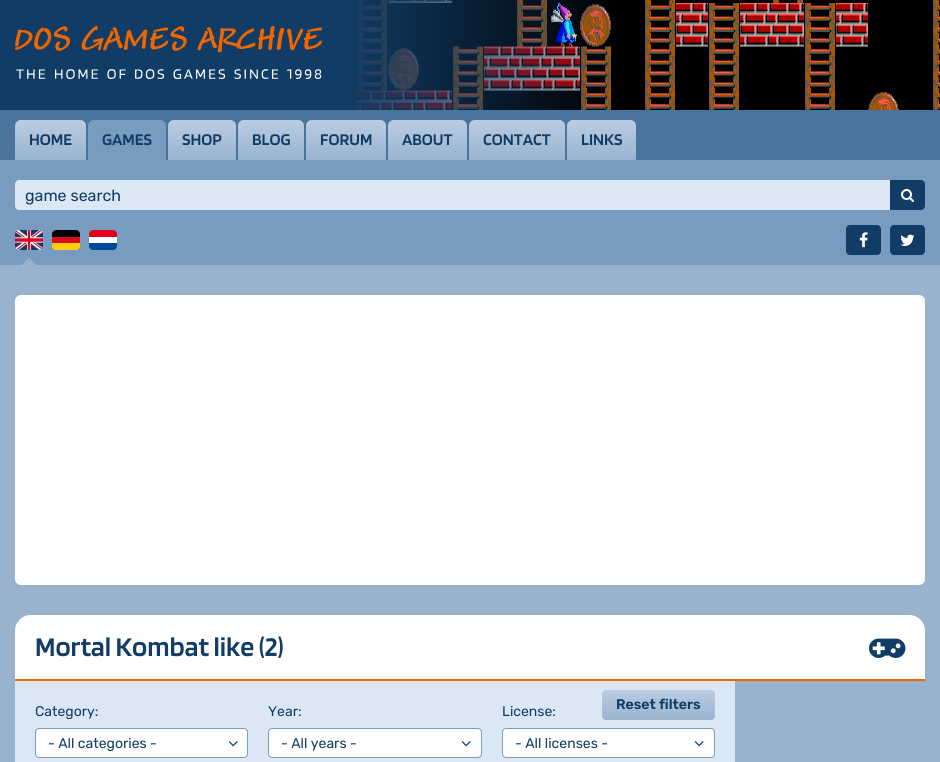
import math
import cairo

surface = cairo.ImageSurface(cairo.FORMAT_RGB24, 940, 762)
c = cairo.Context(surface)
options = cairo.FontOptions()
options.set_hint_metrics(cairo.HINT_METRICS_OFF)
options.set_hint_style(cairo.HINT_STYLE_NONE)
c.set_font_options(options)
c.set_miter_limit(4)
def C(code):
 c.set_source_rgb(*(v / 255 for v in bytes.fromhex(code[-6:])))
def F(family, size, italic, bold):
 c.select_font_face(family, cairo.FONT_SLANT_ITALIC if italic else cairo.FONT_SLANT_NORMAL, cairo.FONT_WEIGHT_BOLD if bold else cairo.FONT_WEIGHT_NORMAL)
 c.set_font_size(size)
def T(x, y, s):
 c.move_to(x, y)
 c.show_text(s)
def R(x, y, w, h):
 c.rectangle(x, y, w, h)
 c.fill()
def Q(x, y, w, h, r):
 c.new_sub_path()
 for i, (u, v) in enumerate([(x + w - r, y + h - r), (x + r, y + h - r), (x + r, y + r), (x + w - r, y + r)]):
  c.arc(u, v, r, i * math.pi / 2, (i + 1) * math.pi / 2)
 c.close_path()
def I(path, x, y, w, h):
 c.save()
 c.set_source_surface(cairo.ImageSurface.create_from_png(path), x, y)
 c.rectangle(x, y, w, h)
 c.fill()
 c.restore()
C('99b3cf')
c.paint()
C('113c66')
R(0,0,340,110)
I('1.png',15,26,307,53)
I('2.png',340,0,600,110)
C('49749c')
R(0,110,940,50)
gradient = cairo.LinearGradient(51,120,51,160)
gradient.add_color_stop_rgba(0,0.729,0.8,0.886,1)
gradient.add_color_stop_rgba(1,0.6,0.702,0.812,1)
c.set_source(gradient)
c.new_path()
c.move_to(21,120)
c.line_to(80,120)
c.curve_to(83.5,120,86,122.5,86,126)
c.line_to(86,160)
c.line_to(15,160)
c.line_to(15,126)
c.curve_to(15,122.5,17.5,120,21,120)
c.close_path()
c.fill()
F('Blinker SemiBold',17,0,0)
C('113c66')
T(29,145,'HOME')
C('779cc0')
c.new_path()
c.move_to(94,120)
c.line_to(160,120)
c.curve_to(163.5,120,166,122.5,166,126)
c.line_to(166,160)
c.line_to(88,160)
c.line_to(88,126)
c.curve_to(88,122.5,90.5,120,94,120)
c.close_path()
c.fill()
C('113c66')
T(102,145,'GAMES')
gradient = cairo.LinearGradient(202,120,202,160)
gradient.add_color_stop_rgba(0,0.729,0.8,0.886,1)
gradient.add_color_stop_rgba(1,0.6,0.702,0.812,1)
c.set_source(gradient)
c.new_path()
c.move_to(174,120)
c.line_to(230,120)
c.curve_to(233.5,120,236,122.5,236,126)
c.line_to(236,160)
c.line_to(168,160)
c.line_to(168,126)
c.curve_to(168,122.5,170.5,120,174,120)
c.close_path()
c.fill()
C('113c66')
T(182,145,'SHOP')
gradient = cairo.LinearGradient(271,120,271,160)
gradient.add_color_stop_rgba(0,0.729,0.8,0.886,1)
gradient.add_color_stop_rgba(1,0.6,0.702,0.812,1)
c.set_source(gradient)
c.new_path()
c.move_to(244,120)
c.line_to(298,120)
c.curve_to(301.5,120,304,122.5,304,126)
c.line_to(304,160)
c.line_to(238,160)
c.line_to(238,126)
c.curve_to(238,122.5,240.5,120,244,120)
c.close_path()
c.fill()
C('113c66')
T(252,145,'BLOG')
gradient = cairo.LinearGradient(346,120,346,160)
gradient.add_color_stop_rgba(0,0.729,0.8,0.886,1)
gradient.add_color_stop_rgba(1,0.6,0.702,0.812,1)
c.set_source(gradient)
c.new_path()
c.move_to(312,120)
c.line_to(380,120)
c.curve_to(383.5,120,386,122.5,386,126)
c.line_to(386,160)
c.line_to(306,160)
c.line_to(306,126)
c.curve_to(306,122.5,308.5,120,312,120)
c.close_path()
c.fill()
C('113c66')
T(320,145,'FORUM')
gradient = cairo.LinearGradient(428,120,428,160)
gradient.add_color_stop_rgba(0,0.729,0.8,0.886,1)
gradient.add_color_stop_rgba(1,0.6,0.702,0.812,1)
c.set_source(gradient)
c.new_path()
c.move_to(394,120)
c.line_to(461,120)
c.curve_to(464.5,120,467,122.5,467,126)
c.line_to(467,160)
c.line_to(388,160)
c.line_to(388,126)
c.curve_to(388,122.5,390.5,120,394,120)
c.close_path()
c.fill()
C('113c66')
T(402,145,'ABOUT')
gradient = cairo.LinearGradient(517,120,517,160)
gradient.add_color_stop_rgba(0,0.729,0.8,0.886,1)
gradient.add_color_stop_rgba(1,0.6,0.702,0.812,1)
c.set_source(gradient)
c.new_path()
c.move_to(475,120)
c.line_to(559,120)
c.curve_to(562.5,120,565,122.5,565,126)
c.line_to(565,160)
c.line_to(469,160)
c.line_to(469,126)
c.curve_to(469,122.5,471.5,120,475,120)
c.close_path()
c.fill()
C('113c66')
T(483,145,'CONTACT')
gradient = cairo.LinearGradient(602,120,602,160)
gradient.add_color_stop_rgba(0,0.729,0.8,0.886,1)
gradient.add_color_stop_rgba(1,0.6,0.702,0.812,1)
c.set_source(gradient)
c.new_path()
c.move_to(573,120)
c.line_to(630,120)
c.curve_to(633.5,120,636,122.5,636,126)
c.line_to(636,160)
c.line_to(567,160)
c.line_to(567,126)
c.curve_to(567,122.5,569.5,120,573,120)
c.close_path()
c.fill()
C('113c66')
T(581,145,'LINKS')
C('779cc0')
R(0,160,940,105)
C('dce7f5')
c.new_path()
c.move_to(19,180)
c.line_to(890,180)
c.line_to(890,210)
c.line_to(19,210)
c.curve_to(17,210,15,208,15,206)
c.line_to(15,184)
c.curve_to(15,182,17,180,19,180)
c.close_path()
c.fill()
F('Rubik',16,0,0)
C('113c66')
T(25,201,'game search')
c.new_path()
c.move_to(890,180)
c.line_to(921,180)
c.curve_to(923,180,925,182,925,184)
c.line_to(925,206)
c.curve_to(925,208,923,210,921,210)
c.line_to(890,210)
c.close_path()
c.fill()
I('3.png',901,189,13,13)
C('99b3cf')
c.new_path()
c.move_to(22,265)
c.line_to(29,258)
c.line_to(36,265)
c.close_path()
c.fill()
I('4.png',15,230,28,20)
C('000000')
c.new_path()
c.move_to(56,230)
c.line_to(76,230)
c.curve_to(78,230,80,232,80,234)
c.line_to(80,237)
c.line_to(52,237)
c.line_to(52,234)
c.curve_to(52,232,54,230,56,230)
c.close_path()
c.fill()
C('dc0c1b')
R(52,237,28,6)
C('ffcf0d')
c.new_path()
c.move_to(52,243)
c.line_to(80,243)
c.line_to(80,246)
c.curve_to(80,248,78,250,76,250)
c.line_to(56,250)
c.curve_to(54,250,52,248,52,246)
c.close_path()
c.fill()
C('004a99')
c.new_path()
c.move_to(89,243)
c.line_to(117,243)
c.line_to(117,246)
c.curve_to(117,248,115,250,113,250)
c.line_to(93,250)
c.curve_to(91,250,89,248,89,246)
c.close_path()
c.fill()
C('ffffff')
R(89,237,28,6)
C('e2001a')
c.new_path()
c.move_to(93,230)
c.line_to(113,230)
c.curve_to(115,230,117,232,117,234)
c.line_to(117,237)
c.line_to(89,237)
c.line_to(89,234)
c.curve_to(89,232,91,230,93,230)
c.close_path()
c.fill()
C('113c66')
Q(846,225,35,30,4)
c.fill()
I('5.png',859,232,9,16)
Q(890,225,35,30,4)
c.fill()
I('6.png',900,234,15,12)
C('ffffff')
Q(15,295,910,290,6)
c.fill()
c.new_path()
c.move_to(31,615)
c.line_to(909,615)
c.curve_to(918,615,925,622,925,631)
c.line_to(925,681)
c.line_to(15,681)
c.line_to(15,631)
c.curve_to(15,622,22,615,31,615)
c.close_path()
c.fill()
C('ee6600')
R(15,679,910,2)
F('Blinker SemiBold',28,0,0)
C('113c66')
T(35,656,'Mortal Kombat like (2)')
I('7.png',869,638,37,20)
C('dce7f5')
R(15,681,720,81)
F('Rubik',14,0,0)
C('113c66')
T(35,716,'Category:')
C('ffffff')
Q(35.5,728.5,212,29,3.5)
c.fill_preserve()
C('779cc0')
c.set_line_width(1)
c.stroke()
C('113c66')
T(48,748,'- All categories -')
C('ffffff')
c.new_path()
c.move_to(218,728)
c.line_to(244,728)
c.curve_to(246,728,248,730,248,732)
c.line_to(248,754)
c.curve_to(248,756,246,758,244,758)
c.line_to(218,758)
c.close_path()
c.fill()
C('779cc0')
c.set_fill_rule(cairo.FILL_RULE_EVEN_ODD)
c.new_path()
c.move_to(218,728)
c.line_to(244,728)
c.curve_to(246,728,248,730,248,732)
c.line_to(248,754)
c.curve_to(248,756,246,758,244,758)
c.line_to(218,758)
c.close_path()
c.move_to(218,729)
c.line_to(244,729)
c.curve_to(245.5,729,247,730.5,247,732)
c.line_to(247,754)
c.curve_to(247,755.5,245.5,757,244,757)
c.line_to(218,757)
c.close_path()
c.fill()
I('8.png',228,741,10,6)
C('113c66')
T(268,716,'Year:')
C('ffffff')
Q(268.5,728.5,213,29,3.5)
c.fill_preserve()
C('779cc0')
c.stroke()
C('113c66')
T(281,748,'- All years -')
C('ffffff')
c.new_path()
c.move_to(452,728)
c.line_to(478,728)
c.curve_to(480,728,482,730,482,732)
c.line_to(482,754)
c.curve_to(482,756,480,758,478,758)
c.line_to(452,758)
c.close_path()
c.fill()
C('779cc0')
c.new_path()
c.move_to(452,728)
c.line_to(478,728)
c.curve_to(480,728,482,730,482,732)
c.line_to(482,754)
c.curve_to(482,756,480,758,478,758)
c.line_to(452,758)
c.close_path()
c.move_to(452,729)
c.line_to(478,729)
c.curve_to(479.5,729,481,730.5,481,732)
c.line_to(481,754)
c.curve_to(481,755.5,479.5,757,478,757)
c.line_to(452,757)
c.close_path()
c.fill()
I('8.png',461,741,10,6)
C('113c66')
T(502,716,'License:')
C('ffffff')
Q(502.5,728.5,212,29,3.5)
c.fill_preserve()
C('779cc0')
c.stroke()
C('113c66')
T(515,748,'- All licenses -')
C('ffffff')
c.new_path()
c.move_to(685,728)
c.line_to(711,728)
c.curve_to(713,728,715,730,715,732)
c.line_to(715,754)
c.curve_to(715,756,713,758,711,758)
c.line_to(685,758)
c.close_path()
c.fill()
C('779cc0')
c.new_path()
c.move_to(685,728)
c.line_to(711,728)
c.curve_to(713,728,715,730,715,732)
c.line_to(715,754)
c.curve_to(715,756,713,758,711,758)
c.line_to(685,758)
c.close_path()
c.move_to(685,729)
c.line_to(711,729)
c.curve_to(712.5,729,714,730.5,714,732)
c.line_to(714,754)
c.curve_to(714,755.5,712.5,757,711,757)
c.line_to(685,757)
c.close_path()
c.fill()
I('8.png',694,741,10,6)
gradient = cairo.LinearGradient(659,690,659,720)
gradient.add_color_stop_rgba(0,0.729,0.8,0.886,1)
gradient.add_color_stop_rgba(1,0.6,0.702,0.812,1)
c.set_source(gradient)
Q(602,690,113,30,4)
c.fill()
F('Rubik SemiBold',14,0,0)
C('113c66')
T(616,709,'Reset filters')
surface.write_to_png('o.png')
